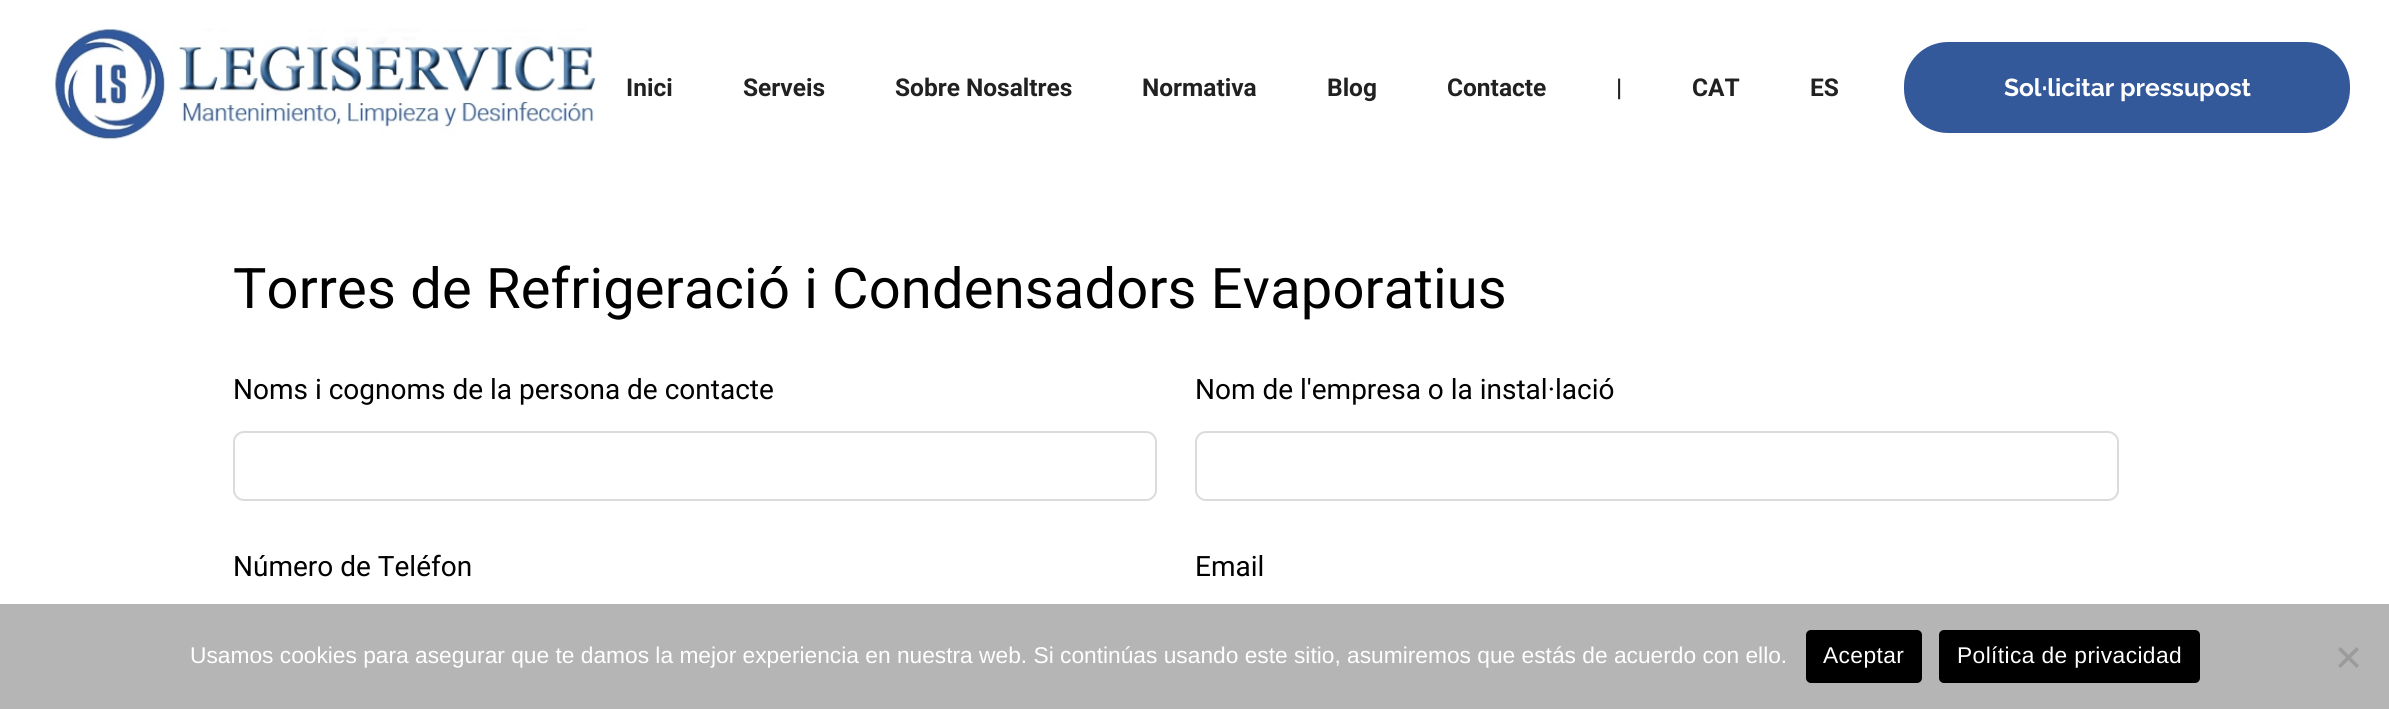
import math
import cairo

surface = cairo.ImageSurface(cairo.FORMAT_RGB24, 2389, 709)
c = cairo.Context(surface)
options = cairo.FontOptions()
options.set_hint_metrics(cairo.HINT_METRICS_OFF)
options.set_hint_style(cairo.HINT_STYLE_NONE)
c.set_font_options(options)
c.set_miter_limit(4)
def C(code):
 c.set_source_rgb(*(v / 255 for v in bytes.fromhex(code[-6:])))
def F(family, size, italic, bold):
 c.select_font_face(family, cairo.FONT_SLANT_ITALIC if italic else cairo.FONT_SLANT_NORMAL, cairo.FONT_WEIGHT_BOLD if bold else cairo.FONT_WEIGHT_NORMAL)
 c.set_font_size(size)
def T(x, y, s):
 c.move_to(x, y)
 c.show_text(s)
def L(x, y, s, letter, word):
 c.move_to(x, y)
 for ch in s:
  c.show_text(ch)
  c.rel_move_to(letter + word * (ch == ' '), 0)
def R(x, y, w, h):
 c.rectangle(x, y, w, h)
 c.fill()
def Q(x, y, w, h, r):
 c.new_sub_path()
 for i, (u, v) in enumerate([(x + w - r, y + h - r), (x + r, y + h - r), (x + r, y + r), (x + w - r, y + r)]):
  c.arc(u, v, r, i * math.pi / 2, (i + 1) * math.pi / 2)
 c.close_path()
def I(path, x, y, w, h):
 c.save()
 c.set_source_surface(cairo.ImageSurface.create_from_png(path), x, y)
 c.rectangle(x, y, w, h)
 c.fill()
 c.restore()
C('ffffff')
c.paint()
I('1.png',54,28,542,112)
F('Roboto',24.5,0,1)
C('212121')
T(626,96,'Inici')
T(743,96,'Serveis')
T(895,96,'Sobre Nosaltres')
T(1142,96,'Normativa')
T(1327,96,'Blog')
T(1447,96,'Contacte')
T(1616,96,'|')
T(1692,96,'CAT')
T(1810,96,'ES')
C('33599b')
Q(1906,44,442,87,42)
c.fill_preserve()
c.set_line_width(4)
c.stroke()
F('Raleway',24.5,0,1)
C('ffffff')
T(2004,96,'Sol·licitar pressupost')
F('Roboto',56,0,0)
C('000000')
L(233,308,'Torres de Refrigeració i Condensadors Evaporatius',.2,0)
F('Roboto',28,0,0)
T(233,399,'Noms i cognoms de la persona de contacte')
Q(234,432,922,68,10)
C('dbdbdb')
c.set_line_width(2)
c.stroke()
C('000000')
T(1195,399,'Nom de l\'empresa o la instal·lació')
Q(1196,432,922,68,10)
C('dbdbdb')
c.stroke()
C('000000')
T(233,576,'Número de Teléfon')
T(1195,576,'Email')
C('b5b5b5')
R(0,604,2389,105)
F('Liberation Sans',22.75,0,0)
C('ffffff')
T(190,663,'Usamos cookies para asegurar que te damos la mejor experiencia en nuestra web. Si continúas usando este sitio, asumiremos que estás de acuerdo con ello.')
C('000000')
Q(1806,630,116,53,5)
c.fill()
C('ffffff')
L(1823,663,'Aceptar',.4,0)
C('000000')
Q(1939,630,261,53,5)
c.fill()
C('ffffff')
L(1957,663,'Política de privacidad',.4,0)
C('9b9b9b')
c.new_path()
c.move_to(2356.5,647)
c.line_to(2359,649.5)
c.line_to(2340.5,668)
c.line_to(2338,665.5)
c.close_path()
c.fill()
c.new_path()
c.move_to(2338,649.5)
c.line_to(2340.5,647)
c.line_to(2359,665.5)
c.line_to(2356.5,668)
c.close_path()
c.fill()
surface.write_to_png('o.png')
